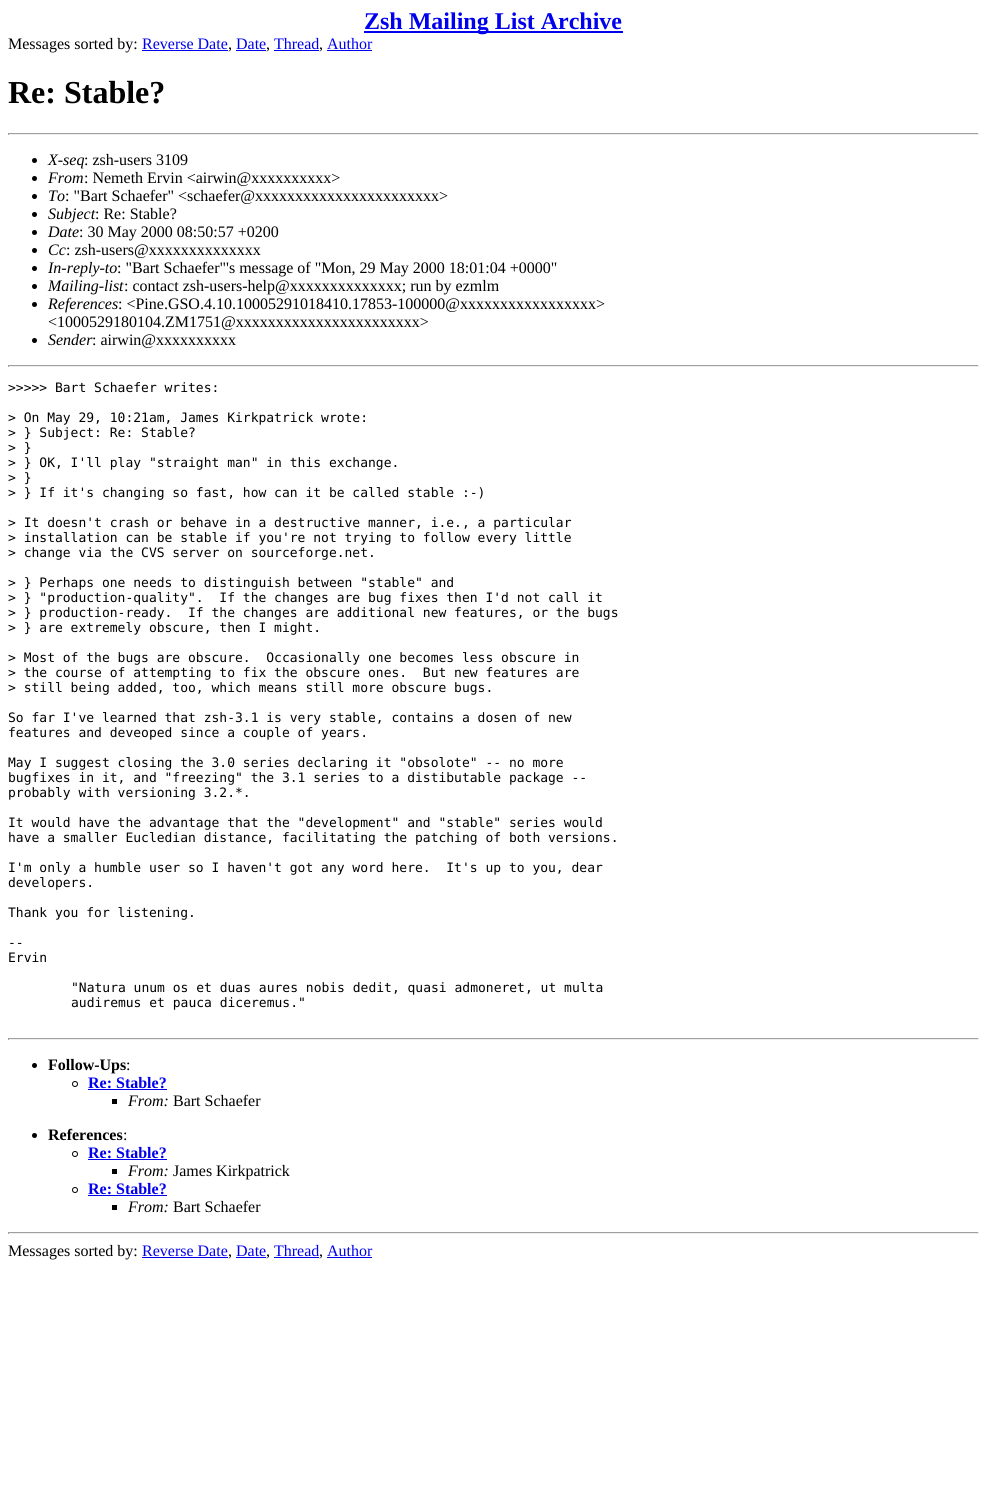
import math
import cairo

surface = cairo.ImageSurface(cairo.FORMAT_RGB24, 987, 1501)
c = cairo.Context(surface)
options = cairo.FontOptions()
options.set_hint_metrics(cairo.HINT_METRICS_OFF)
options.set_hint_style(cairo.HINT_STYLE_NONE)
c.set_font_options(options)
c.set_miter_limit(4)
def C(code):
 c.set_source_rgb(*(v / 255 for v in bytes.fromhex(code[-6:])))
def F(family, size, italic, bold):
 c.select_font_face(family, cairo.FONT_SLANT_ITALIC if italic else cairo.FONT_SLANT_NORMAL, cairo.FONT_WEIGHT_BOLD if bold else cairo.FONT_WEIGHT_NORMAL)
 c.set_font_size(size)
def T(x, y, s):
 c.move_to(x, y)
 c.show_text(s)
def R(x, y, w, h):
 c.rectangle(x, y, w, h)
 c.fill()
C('ffffff')
c.paint()
C('0000ee')
R(364,31,259,2)
F('Liberation Serif',24,0,1)
T(364,29,'Zsh Mailing List Archive')
F('Liberation Serif',16,0,0)
C('000000')
T(8,49,'Messages sorted by:')
C('0000ee')
T(142,49,'Reverse Date')
R(142,50,86,1)
C('000000')
T(228,49,',')
C('0000ee')
T(236,49,'Date')
R(236,50,30,1)
C('000000')
T(266,49,',')
C('0000ee')
T(274,49,'Thread')
R(274,50,45,1)
C('000000')
T(319,49,',')
C('0000ee')
T(327,49,'Author')
R(327,50,45,1)
F('Liberation Serif',32,0,1)
C('000000')
T(8,103,'Re: Stable?')
C('9f9f9f')
R(8,133,971,1)
C('eeeeee')
R(978,133,1,2)
R(8,134,971,1)
C('9f9f9f')
R(8,133,1,2)
C('000000')
c.new_path()
c.arc(34.5,160.5,2.5,0,2 * math.pi)
c.fill()
F('Liberation Serif',16,1,0)
T(48,165,'X-seq')
F('Liberation Serif',16,0,0)
T(84,165,': zsh-users 3109')
c.new_path()
c.arc(34.5,178.5,2.5,0,2 * math.pi)
c.fill()
F('Liberation Serif',16,1,0)
T(48,183,'From')
F('Liberation Serif',16,0,0)
T(84,183,': Nemeth Ervin <airwin@xxxxxxxxxx>')
c.new_path()
c.arc(34.5,196.5,2.5,0,2 * math.pi)
c.fill()
F('Liberation Serif',16,1,0)
T(48,201,'To')
F('Liberation Serif',16,0,0)
T(65,201,': "Bart Schaefer" <schaefer@xxxxxxxxxxxxxxxxxxxxxxx>')
c.new_path()
c.arc(34.5,214.5,2.5,0,2 * math.pi)
c.fill()
F('Liberation Serif',16,1,0)
T(48,219,'Subject')
F('Liberation Serif',16,0,0)
T(95,219,': Re: Stable?')
c.new_path()
c.arc(34.5,232.5,2.5,0,2 * math.pi)
c.fill()
F('Liberation Serif',16,1,0)
T(48,237,'Date')
F('Liberation Serif',16,0,0)
T(79,237,': 30 May 2000 08:50:57 +0200')
c.new_path()
c.arc(34.5,250.5,2.5,0,2 * math.pi)
c.fill()
F('Liberation Serif',16,1,0)
T(48,255,'Cc')
F('Liberation Serif',16,0,0)
T(66,255,': zsh-users@xxxxxxxxxxxxxx')
c.new_path()
c.arc(34.5,268.5,2.5,0,2 * math.pi)
c.fill()
F('Liberation Serif',16,1,0)
T(48,273,'In-reply-to')
F('Liberation Serif',16,0,0)
T(117,273,': "Bart Schaefer"\'s message of "Mon, 29 May 2000 18:01:04 +0000"')
c.new_path()
c.arc(34.5,286.5,2.5,0,2 * math.pi)
c.fill()
F('Liberation Serif',16,1,0)
T(48,291,'Mailing-list')
F('Liberation Serif',16,0,0)
T(124,291,': contact zsh-users-help@xxxxxxxxxxxxxx; run by ezmlm')
c.new_path()
c.arc(34.5,304.5,2.5,0,2 * math.pi)
c.fill()
F('Liberation Serif',16,1,0)
T(48,309,'References')
F('Liberation Serif',16,0,0)
T(118,309,': <Pine.GSO.4.10.10005291018410.17853-100000@xxxxxxxxxxxxxxxxx>')
T(48,327,'<1000529180104.ZM1751@xxxxxxxxxxxxxxxxxxxxxxx>')
c.new_path()
c.arc(34.5,340.5,2.5,0,2 * math.pi)
c.fill()
F('Liberation Serif',16,1,0)
T(48,345,'Sender')
F('Liberation Serif',16,0,0)
T(92,345,': airwin@xxxxxxxxxx')
C('9f9f9f')
R(8,365,971,1)
C('eeeeee')
R(978,365,1,2)
R(8,366,971,1)
C('9f9f9f')
R(8,365,1,2)
F('DejaVu Sans Mono',13,0,0)
C('000000')
T(8,392,'>>>>> Bart Schaefer writes:')
T(8,422,'> On May 29, 10:21am, James Kirkpatrick wrote:')
T(8,437,'> } Subject: Re: Stable?')
T(8,452,'> }')
T(8,467,'> } OK, I\'ll play "straight man" in this exchange.')
T(8,482,'> }')
T(8,497,'> } If it\'s changing so fast, how can it be called stable :-)')
T(8,527,'> It doesn\'t crash or behave in a destructive manner, i.e., a particular')
T(8,542,'> installation can be stable if you\'re not trying to follow every little')
T(8,557,'> change via the CVS server on sourceforge.net.')
T(8,587,'> } Perhaps one needs to distinguish between "stable" and')
T(8,602,'> } "production-quality".  If the changes are bug fixes then I\'d not call it')
T(8,617,'> } production-ready.  If the changes are additional new features, or the bugs')
T(8,632,'> } are extremely obscure, then I might.')
T(8,662,'> Most of the bugs are obscure.  Occasionally one becomes less obscure in')
T(8,677,'> the course of attempting to fix the obscure ones.  But new features are')
T(8,692,'> still being added, too, which means still more obscure bugs.')
T(8,722,'So far I\'ve learned that zsh-3.1 is very stable, contains a dosen of new')
T(8,737,'features and deveoped since a couple of years.')
T(8,767,'May I suggest closing the 3.0 series declaring it "obsolote" -- no more')
T(8,782,'bugfixes in it, and "freezing" the 3.1 series to a distibutable package --')
T(8,797,'probably with versioning 3.2.*.')
T(8,827,'It would have the advantage that the "development" and "stable" series would')
T(8,842,'have a smaller Eucledian distance, facilitating the patching of both versions.')
T(8,872,'I\'m only a humble user so I haven\'t got any word here.  It\'s up to you, dear')
T(8,887,'developers.')
T(8,917,'Thank you for listening.')
T(8,947,'--')
T(8,962,'Ervin')
T(71,992,'"Natura unum os et duas aures nobis dedit, quasi admoneret, ut multa')
T(71,1007,'audiremus et pauca diceremus."')
C('9f9f9f')
R(8,1038,971,1)
C('eeeeee')
R(978,1038,1,2)
R(8,1039,971,1)
C('9f9f9f')
R(8,1038,1,2)
C('000000')
c.new_path()
c.arc(34.5,1065.5,2.5,0,2 * math.pi)
c.fill()
F('Liberation Serif',16,0,1)
T(48,1070,'Follow-Ups')
F('Liberation Serif',16,0,0)
T(126,1070,':')
c.new_path()
c.arc(75,1084,2.5,0,2 * math.pi)
c.set_line_width(1)
c.stroke()
F('Liberation Serif',16,0,1)
C('0000ee')
T(88,1088,'Re: Stable?')
R(88,1089,79,1)
C('000000')
R(112,1099,5,5)
F('Liberation Serif',16,1,0)
T(128,1106,'From:')
F('Liberation Serif',16,0,0)
T(173,1106,'Bart Schaefer')
c.new_path()
c.arc(34.5,1135.5,2.5,0,2 * math.pi)
c.fill()
F('Liberation Serif',16,0,1)
T(48,1140,'References')
F('Liberation Serif',16,0,0)
T(123,1140,':')
c.new_path()
c.arc(75,1154,2.5,0,2 * math.pi)
c.stroke()
F('Liberation Serif',16,0,1)
C('0000ee')
T(88,1158,'Re: Stable?')
R(88,1159,79,1)
C('000000')
R(112,1169,5,5)
F('Liberation Serif',16,1,0)
T(128,1176,'From:')
F('Liberation Serif',16,0,0)
T(173,1176,'James Kirkpatrick')
c.new_path()
c.arc(75,1190,2.5,0,2 * math.pi)
c.stroke()
F('Liberation Serif',16,0,1)
C('0000ee')
T(88,1194,'Re: Stable?')
R(88,1195,79,1)
C('000000')
R(112,1205,5,5)
F('Liberation Serif',16,1,0)
T(128,1212,'From:')
F('Liberation Serif',16,0,0)
T(173,1212,'Bart Schaefer')
C('9f9f9f')
R(8,1232,971,1)
C('eeeeee')
R(978,1232,1,2)
R(8,1233,971,1)
C('9f9f9f')
R(8,1232,1,2)
C('000000')
T(8,1256,'Messages sorted by:')
C('0000ee')
T(142,1256,'Reverse Date')
R(142,1257,86,1)
C('000000')
T(228,1256,',')
C('0000ee')
T(236,1256,'Date')
R(236,1257,30,1)
C('000000')
T(266,1256,',')
C('0000ee')
T(274,1256,'Thread')
R(274,1257,45,1)
C('000000')
T(319,1256,',')
C('0000ee')
T(327,1256,'Author')
R(327,1257,45,1)
surface.write_to_png('o.png')
